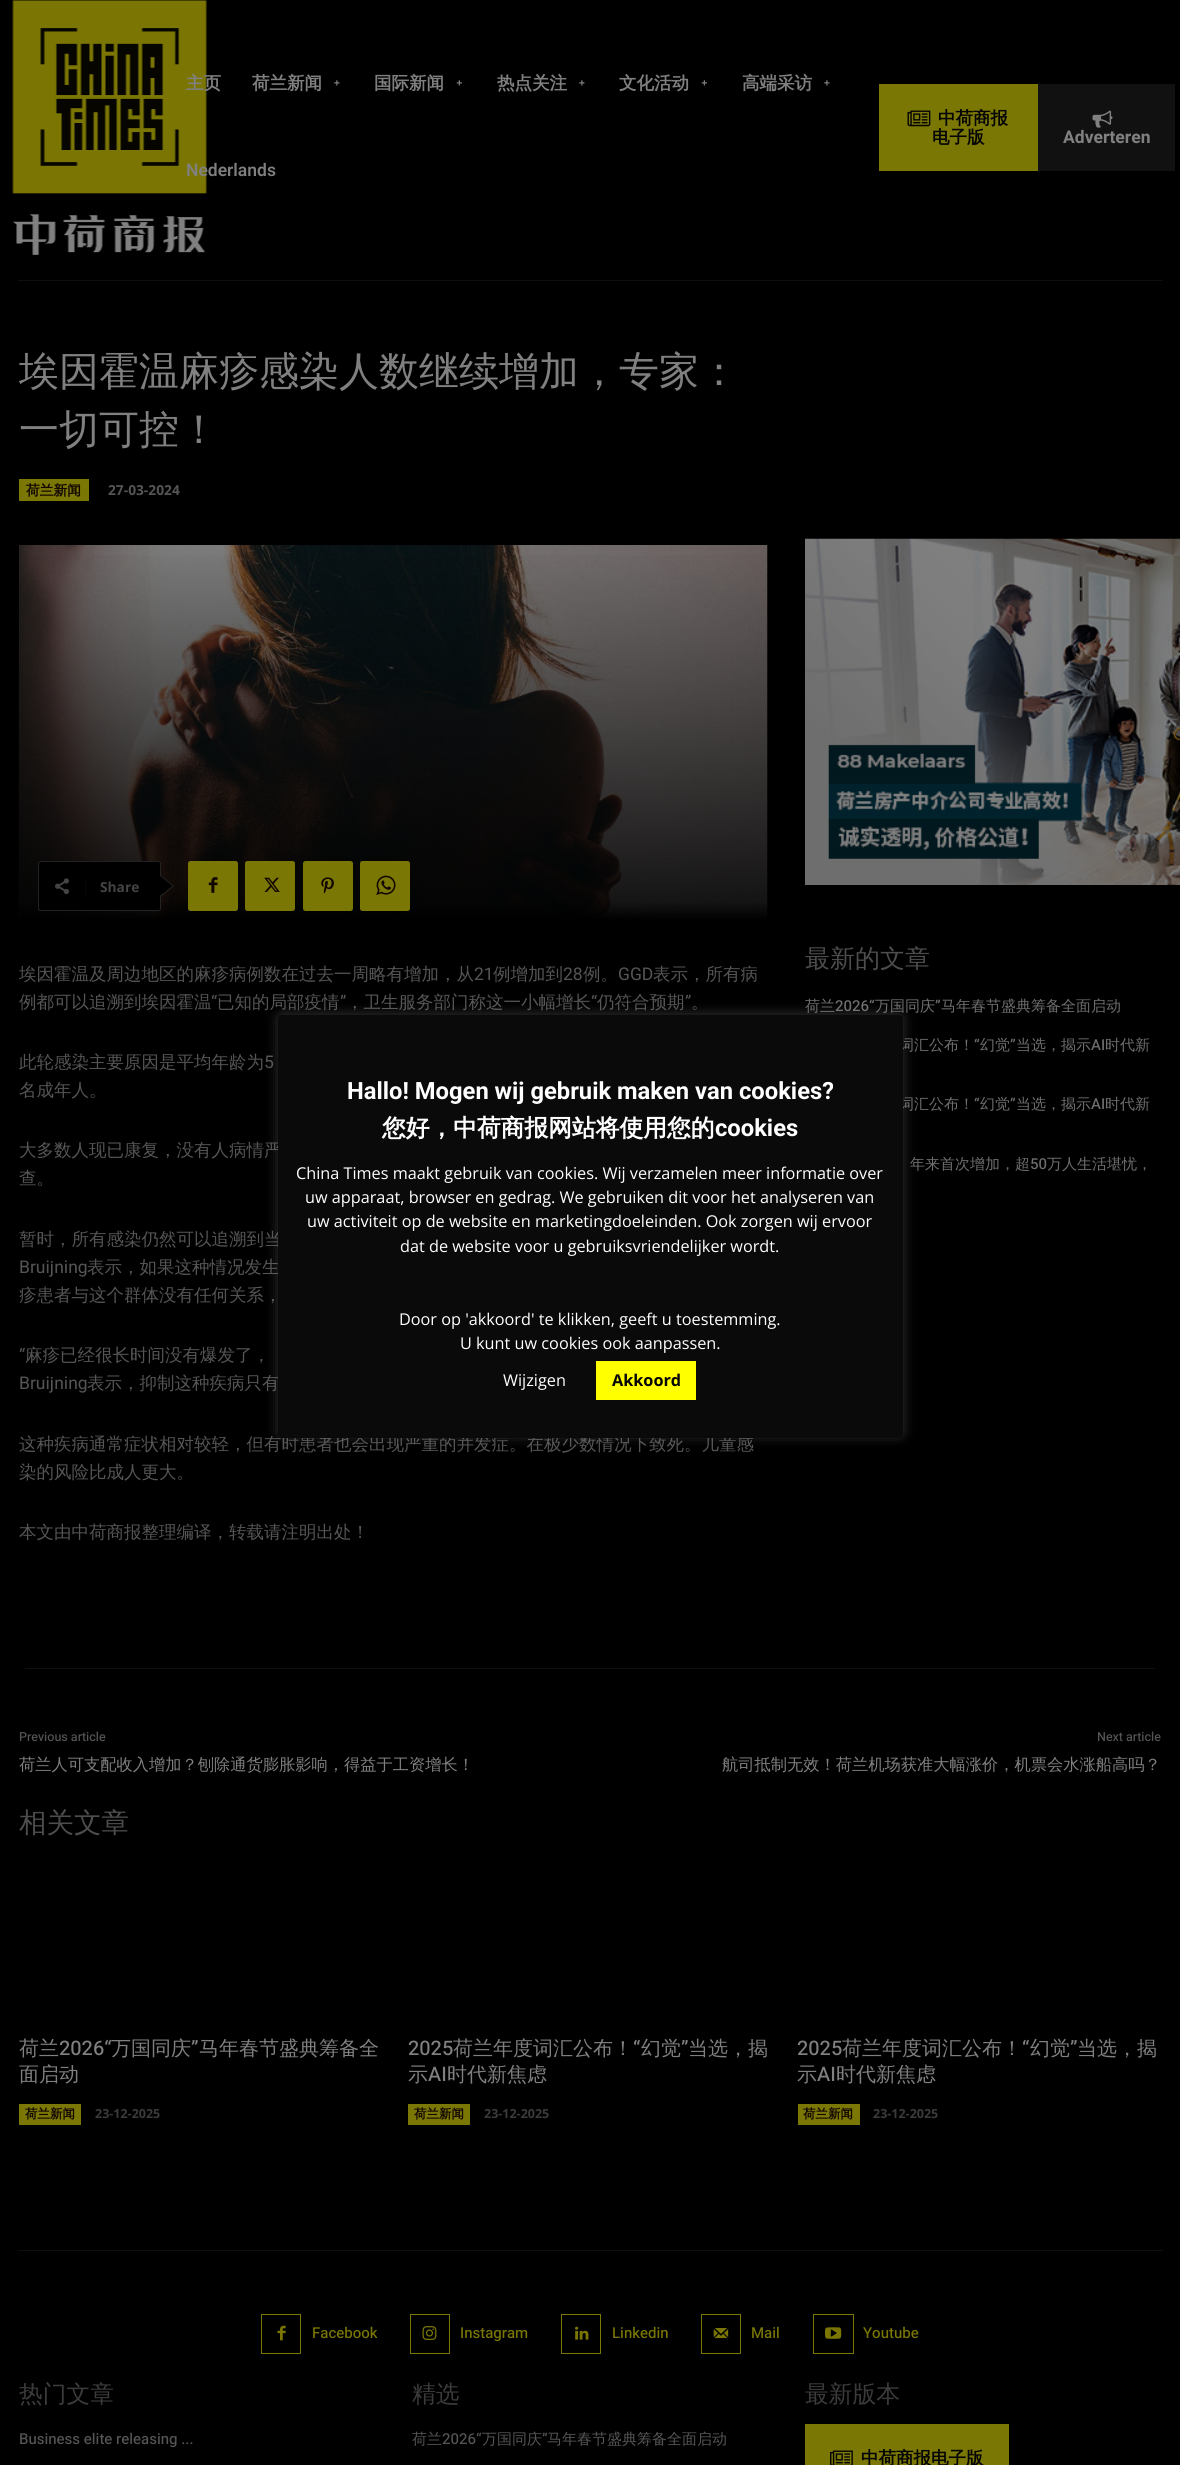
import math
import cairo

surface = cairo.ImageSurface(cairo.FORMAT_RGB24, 1180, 2465)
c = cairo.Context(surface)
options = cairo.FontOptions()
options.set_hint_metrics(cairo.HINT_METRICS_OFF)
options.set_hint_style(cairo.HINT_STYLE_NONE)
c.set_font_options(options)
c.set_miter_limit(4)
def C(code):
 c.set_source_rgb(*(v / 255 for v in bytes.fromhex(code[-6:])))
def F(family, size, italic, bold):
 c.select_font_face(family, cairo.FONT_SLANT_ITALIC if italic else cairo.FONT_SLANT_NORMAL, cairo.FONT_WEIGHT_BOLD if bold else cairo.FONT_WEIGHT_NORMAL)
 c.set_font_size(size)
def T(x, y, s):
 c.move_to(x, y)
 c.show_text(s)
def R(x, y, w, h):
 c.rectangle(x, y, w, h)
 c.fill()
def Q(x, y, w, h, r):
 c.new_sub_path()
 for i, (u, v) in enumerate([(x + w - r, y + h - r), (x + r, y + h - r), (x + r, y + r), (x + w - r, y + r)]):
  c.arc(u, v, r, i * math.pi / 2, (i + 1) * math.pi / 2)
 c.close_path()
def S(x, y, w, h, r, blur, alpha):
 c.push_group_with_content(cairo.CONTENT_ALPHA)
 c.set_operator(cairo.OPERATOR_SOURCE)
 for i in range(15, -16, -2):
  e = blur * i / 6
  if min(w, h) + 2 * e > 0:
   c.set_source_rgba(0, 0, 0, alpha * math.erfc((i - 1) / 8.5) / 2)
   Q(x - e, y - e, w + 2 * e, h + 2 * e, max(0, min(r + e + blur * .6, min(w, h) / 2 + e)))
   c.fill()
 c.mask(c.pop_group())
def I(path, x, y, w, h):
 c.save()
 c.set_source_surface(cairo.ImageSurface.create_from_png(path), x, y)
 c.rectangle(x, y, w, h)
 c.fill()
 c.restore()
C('000000')
c.paint()
I('1.png',12,0,195,255)
F('WenQuanYi Zen Hei',17.5,0,1)
C('808080')
T(186,89,'主页')
T(252,89,'荷兰新闻')
I('2.png',334,80,6,6)
T(374,89,'国际新闻')
I('3.png',456,80,6,6)
T(497,89,'热点关注')
I('2.png',579,80,6,6)
T(619,89,'文化活动')
I('3.png',701,80,6,6)
T(742,89,'高端采访')
I('2.png',824,80,6,6)
F('Heebo SemiBold',17.5,0,0)
T(186,176,'Nederlands')
C('7b7704')
R(879,84,159,87)
I('4.png',907,110,24,17)
F('WenQuanYi Zen Hei',17.5,0,1)
C('050505')
T(938,124,'中荷商报')
T(932,143,'电子版')
C('111111')
R(1038,84,137,87)
I('5.png',1092,110,21,18)
F('Heebo',17.5,0,1)
C('808080')
T(1063,143,'Adverteren')
C('100f0f')
R(18,280,1145,1)
F('WenQuanYi Zen Hei Medium',40,0,0)
C('808080')
T(19,385,'埃因霍温麻疹感染人数继续增加，专家：')
T(19,443,'一切可控！')
C('7b7704')
R(19,479,70,22)
F('WenQuanYi Zen Hei',13.75,0,1)
C('120700')
T(26,495,'荷兰新闻')
F('Open Sans',13.75,0,1)
C('555555')
T(108,495,'27-03-2024')
I('6.png',18,545,750,375)
gradient = cairo.LinearGradient(393,920,393,545)
gradient.add_color_stop_rgba(0,0,0,0,1)
gradient.add_color_stop_rgba(.05,0,0,0,.8)
gradient.add_color_stop_rgba(1,0,0,0,0)
c.set_source(gradient)
R(19,555,749,365)
C('000000')
Q(38.5,861.5,122,49,2)
c.fill_preserve()
C('222222')
c.set_line_width(1)
c.stroke()
c.new_path()
c.move_to(160,897.5)
c.line_to(160,875)
c.line_to(174,886)
c.close_path()
c.fill()
I('7.png',55,878,14,17)
C('060606')
R(85,878,1,20)
C('444444')
T(100,892,'Share')
C('000000')
c.new_path()
c.move_to(160,896)
c.line_to(160,876)
c.line_to(172.5,886)
c.close_path()
c.fill()
C('7b7704')
Q(188,861,50,50,2.5)
c.fill()
I('8.png',208,877,10,16)
Q(245,861,50,50,2.5)
c.fill()
I('9.png',264,877,16,15)
Q(303,861,50,50,2.5)
c.fill()
I('10.png',321,877,13,17)
Q(360,861,50,50,2.5)
c.fill()
I('11.png',376,875,20,20)
F('WenQuanYi Zen Hei Medium',17.5,0,0)
C('555555')
T(19,980,'埃因霍温及周边地区的麻疹病例数在过去一周略有增加，从')
F('Heebo',17.5,0,0)
T(474,980,'21')
F('WenQuanYi Zen Hei Medium',17.5,0,0)
T(493,980,'例增加到')
F('Heebo',17.5,0,0)
T(563,980,'28')
F('WenQuanYi Zen Hei Medium',17.5,0,0)
T(583,980,'例。')
F('Heebo',17.5,0,0)
T(618,980,'GGD')
F('WenQuanYi Zen Hei Medium',17.5,0,0)
T(653,980,'表示，所有病')
T(19,1008,'例都可以追溯到埃因霍温')
F('Heebo',17.5,0,0)
T(211,1008,'“')
F('WenQuanYi Zen Hei Medium',17.5,0,0)
T(217,1008,'已知的局部疫情')
F('Heebo',17.5,0,0)
T(340,1008,'”')
F('WenQuanYi Zen Hei Medium',17.5,0,0)
T(346,1008,'，卫生服务部门称这一小幅增长')
F('Heebo',17.5,0,0)
T(591,1008,'“')
F('WenQuanYi Zen Hei Medium',17.5,0,0)
T(597,1008,'仍符合预期')
F('Heebo',17.5,0,0)
T(685,1008,'”')
F('WenQuanYi Zen Hei Medium',17.5,0,0)
T(691,1008,'。')
T(19,1068,'此轮感染主要原因是平均年龄为')
F('Heebo',17.5,0,0)
T(264,1068,'5')
F('WenQuanYi Zen Hei Medium',17.5,0,0)
T(19,1096,'名成年人。')
T(19,1156,'大多数人现已康复，没有人病情严')
T(19,1184,'查。')
T(19,1245,'暂时，所有感染仍然可以追溯到当')
F('Heebo',17.5,0,0)
T(19,1273,'Bruijning')
F('WenQuanYi Zen Hei Medium',17.5,0,0)
T(87,1273,'表示，如果这种情况发生')
T(19,1301,'疹患者与这个群体没有任何关系，')
F('Heebo',17.5,0,0)
T(19,1361,'“')
F('WenQuanYi Zen Hei Medium',17.5,0,0)
T(25,1361,'麻疹已经很长时间没有爆发了，')
F('Heebo',17.5,0,0)
T(19,1389,'Bruijning')
F('WenQuanYi Zen Hei Medium',17.5,0,0)
T(87,1389,'表示，抑制这种疾病只有')
T(19,1450,'这种疾病通常症状相对较轻，但有时患者也会出现严重的并发症。在极少数情况下致死。儿童感')
T(19,1478,'染的风险比成人更大。')
T(19,1538,'本文由中荷商报整理编译，转载请注明出处！')
I('12.png',805,538,375,347)
F('WenQuanYi Zen Hei Medium',25,0,0)
C('4d4d4d')
T(805,967,'最新的文章')
F('WenQuanYi Zen Hei Medium',15,0,0)
C('6f6f6f')
T(805,1011,'荷兰')
F('Heebo Medium',15,0,0)
T(835,1011,'2026“')
F('WenQuanYi Zen Hei Medium',15,0,0)
T(875,1011,'万国同庆')
F('Heebo Medium',15,0,0)
T(935,1011,'”')
F('WenQuanYi Zen Hei Medium',15,0,0)
T(941,1011,'马年春节盛典筹备全面启动')
T(899,1050,'词汇公布！')
F('Heebo Medium',15,0,0)
T(974,1050,'“')
F('WenQuanYi Zen Hei Medium',15,0,0)
T(980,1050,'幻觉')
F('Heebo Medium',15,0,0)
T(1010,1050,'”')
F('WenQuanYi Zen Hei Medium',15,0,0)
T(1016,1050,'当选，揭示')
F('Heebo Medium',15,0,0)
T(1091,1050,'AI')
F('WenQuanYi Zen Hei Medium',15,0,0)
T(1105,1050,'时代新')
T(899,1109,'词汇公布！')
F('Heebo Medium',15,0,0)
T(974,1109,'“')
F('WenQuanYi Zen Hei Medium',15,0,0)
T(980,1109,'幻觉')
F('Heebo Medium',15,0,0)
T(1010,1109,'”')
F('WenQuanYi Zen Hei Medium',15,0,0)
T(1016,1109,'当选，揭示')
F('Heebo Medium',15,0,0)
T(1091,1109,'AI')
F('WenQuanYi Zen Hei Medium',15,0,0)
T(1105,1109,'时代新')
T(910,1169,'年来首次增加，超')
F('Heebo Medium',15,0,0)
T(1030,1169,'50')
F('WenQuanYi Zen Hei Medium',15,0,0)
T(1047,1169,'万人生活堪忧，')
C('100f0f')
R(25,1668,1130,1)
F('Heebo Medium',12.5,0,0)
C('555555')
T(19,1741,'Previous article')
F('WenQuanYi Zen Hei Medium',16.25,0,0)
C('808080')
T(19,1770,'荷兰人可支配收入增加？刨除通货膨胀影响，得益于工资增长！')
F('Heebo Medium',12.5,0,0)
C('555555')
T(1097,1741,'Next article')
F('WenQuanYi Zen Hei Medium',16.25,0,0)
C('808080')
T(722,1770,'航司抵制无效！荷兰机场获准大幅涨价，机票会水涨船高吗？')
F('WenQuanYi Zen Hei Medium',27.5,0,0)
C('4d4d4d')
T(19,1832,'相关文章')
F('WenQuanYi Zen Hei Medium',20,0,0)
C('808080')
T(19,2055,'荷兰')
F('Heebo Medium',20,0,0)
T(59,2055,'2026“')
F('WenQuanYi Zen Hei Medium',20,0,0)
T(111,2055,'万国同庆')
F('Heebo Medium',20,0,0)
T(191,2055,'”')
F('WenQuanYi Zen Hei Medium',20,0,0)
T(199,2055,'马年春节盛典筹备全')
T(19,2081,'面启动')
C('7b7704')
R(19,2104,62,21)
F('WenQuanYi Zen Hei',12.5,0,1)
C('120700')
T(25,2118,'荷兰新闻')
F('Open Sans',12.5,0,1)
C('3b3b3b')
T(95,2118,'23-12-2025')
F('Heebo Medium',20,0,0)
C('808080')
T(408,2055,'2025')
F('WenQuanYi Zen Hei Medium',20,0,0)
T(453,2055,'荷兰年度词汇公布！')
F('Heebo Medium',20,0,0)
T(633,2055,'“')
F('WenQuanYi Zen Hei Medium',20,0,0)
T(641,2055,'幻觉')
F('Heebo Medium',20,0,0)
T(681,2055,'”')
F('WenQuanYi Zen Hei Medium',20,0,0)
T(688,2055,'当选，揭')
T(408,2081,'示')
F('Heebo Medium',20,0,0)
T(428,2081,'AI')
F('WenQuanYi Zen Hei Medium',20,0,0)
T(447,2081,'时代新焦虑')
C('7b7704')
R(408,2104,62,21)
F('WenQuanYi Zen Hei',12.5,0,1)
C('120700')
T(414,2118,'荷兰新闻')
F('Open Sans',12.5,0,1)
C('3b3b3b')
T(484,2118,'23-12-2025')
F('Heebo Medium',20,0,0)
C('808080')
T(797,2055,'2025')
F('WenQuanYi Zen Hei Medium',20,0,0)
T(842,2055,'荷兰年度词汇公布！')
F('Heebo Medium',20,0,0)
T(1022,2055,'“')
F('WenQuanYi Zen Hei Medium',20,0,0)
T(1030,2055,'幻觉')
F('Heebo Medium',20,0,0)
T(1070,2055,'”')
F('WenQuanYi Zen Hei Medium',20,0,0)
T(1077,2055,'当选，揭')
T(797,2081,'示')
F('Heebo Medium',20,0,0)
T(817,2081,'AI')
F('WenQuanYi Zen Hei Medium',20,0,0)
T(836,2081,'时代新焦虑')
C('7b7704')
R(798,2104,62,21)
F('WenQuanYi Zen Hei',12.5,0,1)
C('120700')
T(803,2118,'荷兰新闻')
F('Open Sans',12.5,0,1)
C('3b3b3b')
T(873,2118,'23-12-2025')
C('100f0f')
R(18,2250,1145,1)
c.rectangle(261.5,2314.5,39,39)
C('7b7704')
c.stroke()
I('13.png',277,2325,9,16)
F('Heebo Medium',15,0,0)
T(312,2338,'Facebook')
c.rectangle(410.5,2314.5,39,39)
c.stroke()
I('14.png',422,2326,15,14)
T(460,2338,'Instagram')
c.rectangle(561.5,2314.5,39,39)
c.stroke()
I('15.png',575,2326,14,14)
T(612,2338,'Linkedin')
c.rectangle(701.5,2314.5,39,39)
c.stroke()
I('16.png',713,2328,16,11)
T(751,2338,'Mail')
c.rectangle(813.5,2314.5,40,39)
c.stroke()
I('17.png',825,2327,17,12)
T(863,2338,'Youtube')
F('WenQuanYi Zen Hei Medium',23.75,0,0)
C('3b3b3b')
T(19,2402,'热门文章')
F('Heebo Medium',15,0,0)
C('555555')
T(19,2444,'Business elite releasing ...')
F('WenQuanYi Zen Hei Medium',23.75,0,0)
C('3b3b3b')
T(412,2402,'精选')
F('WenQuanYi Zen Hei Medium',15,0,0)
C('555555')
T(412,2444,'荷兰')
F('Heebo Medium',15,0,0)
T(442,2444,'2026“')
F('WenQuanYi Zen Hei Medium',15,0,0)
T(482,2444,'万国同庆')
F('Heebo Medium',15,0,0)
T(542,2444,'”')
F('WenQuanYi Zen Hei Medium',15,0,0)
T(547,2444,'马年春节盛典筹备全面启动')
F('WenQuanYi Zen Hei Medium',23.75,0,0)
C('3b3b3b')
T(805,2402,'最新版本')
C('7b7704')
R(805,2424,204,41)
I('18.png',830,2450,23,15)
F('WenQuanYi Zen Hei',17.5,0,1)
C('050505')
T(861,2464,'中荷商报电子版')
C('acabab')
S(278,1014,625,422,4,6,.3)
C('0a0a0a')
Q(278,1015,625,423,4)
c.fill()
F('Roboto',23.75,0,1)
C('ffffff')
T(347,1099,'Hallo! Mogen wij gebruik maken van cookies?')
F('WenQuanYi Zen Hei',23.75,0,1)
T(382,1136,'您好，中荷商报网站将使用您的')
F('Roboto',23.75,0,1)
T(715,1136,'cookies')
F('Open Sans',16.25,0,0)
T(296,1179,'China Times maakt gebruik van cookies. Wij verzamelen meer informatie over')
T(305,1203,'uw apparaat, browser en gedrag. We gebruiken dit voor het analyseren van')
T(307,1227,'uw activiteit op de website en marketingdoeleinden. Ook zorgen wij ervoor')
T(400,1252,'dat de website voor u gebruiksvriendelijker wordt.')
T(399,1325,'Door op \'akkoord\' te klikken, geeft u toestemming.')
T(460,1349,'U kunt uw cookies ook aanpassen.')
T(503,1386,'Wijzigen')
C('ffff00')
R(596,1361,100,39)
F('Open Sans',16.25,0,1)
C('050505')
T(612,1386,'Akkoord')
surface.write_to_png('o.png')
